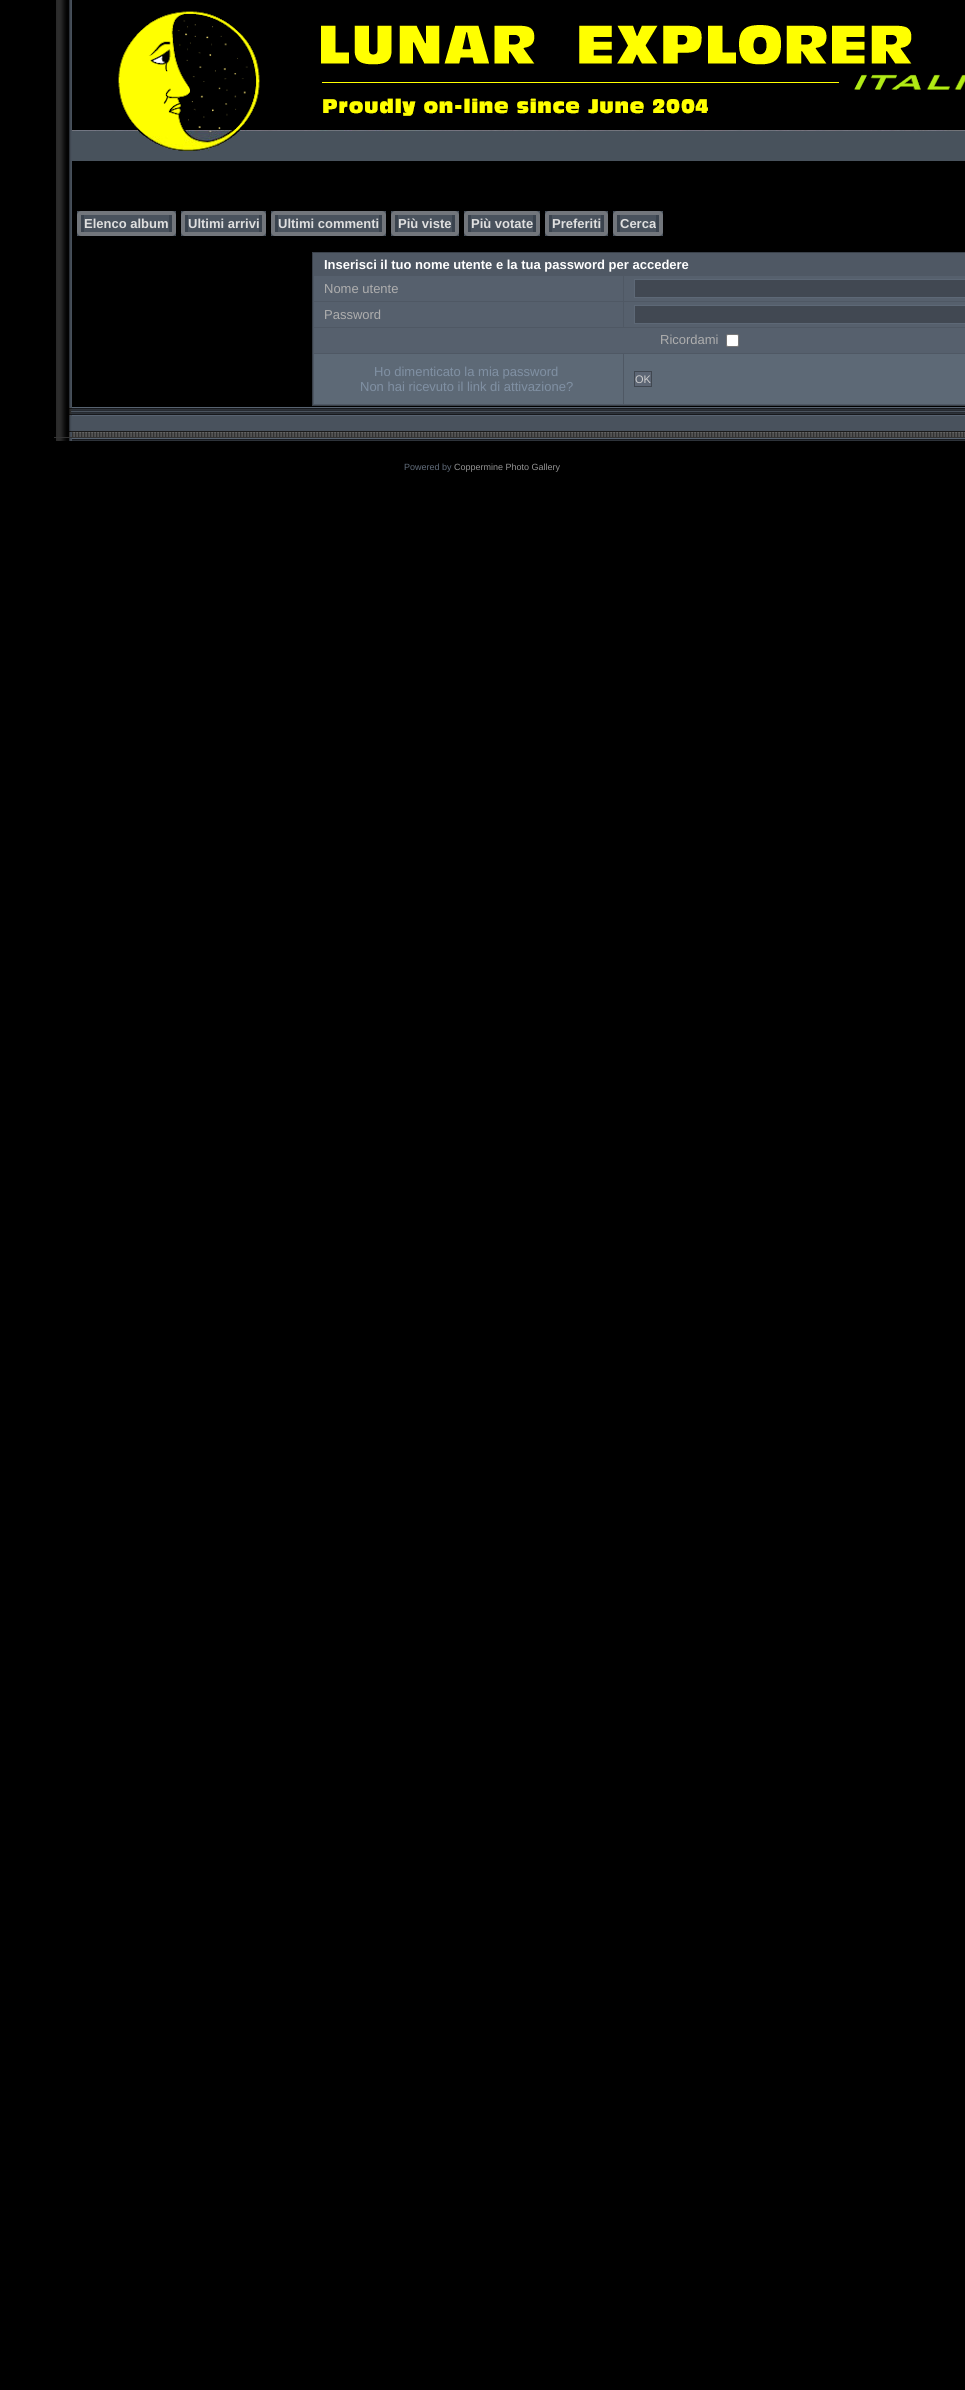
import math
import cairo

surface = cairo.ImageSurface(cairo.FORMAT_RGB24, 965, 2390)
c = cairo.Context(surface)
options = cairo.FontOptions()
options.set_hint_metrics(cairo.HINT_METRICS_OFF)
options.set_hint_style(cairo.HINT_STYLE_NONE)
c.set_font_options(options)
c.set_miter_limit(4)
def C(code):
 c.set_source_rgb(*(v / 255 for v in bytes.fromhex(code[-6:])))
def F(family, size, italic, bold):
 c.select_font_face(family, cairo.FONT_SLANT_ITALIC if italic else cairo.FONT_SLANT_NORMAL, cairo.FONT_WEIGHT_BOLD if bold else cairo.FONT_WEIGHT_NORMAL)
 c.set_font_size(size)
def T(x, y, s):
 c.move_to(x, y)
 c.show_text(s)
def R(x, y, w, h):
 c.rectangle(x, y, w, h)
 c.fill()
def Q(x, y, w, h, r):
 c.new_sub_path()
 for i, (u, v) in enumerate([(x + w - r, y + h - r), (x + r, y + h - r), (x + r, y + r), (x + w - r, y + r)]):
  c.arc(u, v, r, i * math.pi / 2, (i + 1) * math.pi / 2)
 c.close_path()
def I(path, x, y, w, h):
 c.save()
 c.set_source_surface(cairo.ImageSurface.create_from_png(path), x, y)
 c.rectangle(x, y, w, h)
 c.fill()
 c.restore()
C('000000')
c.paint()
I('1.png',56,0,16,161)
C('48525c')
R(72,151,893,10)
I('2.png',72,11,893,140)
I('3.png',56,161,16,246)
I('4.png',77,211,7,25)
I('5.png',84,211,85,25)
F('Liberation Sans',13,0,1)
C('dfdfdf')
T(84,228,'Elenco album')
I('6.png',169,211,7,25)
I('4.png',181,211,7,25)
I('7.png',188,211,71,25)
T(188,228,'Ultimi arrivi')
I('6.png',259,211,7,25)
I('4.png',271,211,7,25)
I('8.png',278,211,101,25)
T(278,228,'Ultimi commenti')
I('6.png',379,211,7,25)
I('4.png',391,211,7,25)
I('9.png',398,211,54,25)
T(398,228,'Più viste')
I('6.png',452,211,7,25)
I('4.png',464,211,7,25)
I('10.png',471,211,62,25)
T(471,228,'Più votate')
I('6.png',533,211,7,25)
I('4.png',545,211,7,25)
I('11.png',552,211,49,25)
T(552,228,'Preferiti')
I('6.png',601,211,7,25)
I('4.png',613,211,7,25)
I('12.png',620,211,36,25)
T(620,228,'Cerca')
I('6.png',656,211,7,25)
C('4f5864')
c.rectangle(312.5,252.5,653,153)
c.fill_preserve()
C('394049')
c.set_line_width(1)
c.stroke()
C('ffffff')
T(324,269,'Inserisci il tuo nome utente e la tua password per accedere')
C('56606d')
R(314,276,309,25)
F('Liberation Sans',13,0,0)
C('aeaeae')
T(324,293,'Nome utente')
C('56606d')
R(624,276,341,25)
C('414852')
c.rectangle(634.5,279.5,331,18)
c.fill_preserve()
C('5d6876')
c.stroke()
C('56606d')
R(314,302,309,25)
C('aeaeae')
T(324,319,'Password')
C('56606d')
R(624,302,341,25)
C('414852')
c.rectangle(634.5,305.5,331,18)
c.fill_preserve()
C('5d6876')
c.stroke()
C('56606d')
R(314,328,651,25)
C('aeaeae')
T(660,344,'Ricordami')
C('ffffff')
Q(726.5,334.5,12,12,1.5)
c.fill_preserve()
C('767676')
c.stroke()
C('5d6976')
R(314,354,309,50)
C('8090a3')
T(374,376,'Ho dimenticato la mia password')
T(360,391,'Non hai ricevuto il link di attivazione?')
C('5d6976')
R(624,354,341,50)
C('5d6674')
c.rectangle(634.5,371.5,17,15)
c.fill_preserve()
C('404750')
c.stroke()
F('Liberation Sans',11,0,0)
C('cccccc')
T(635,383,'OK')
I('13.png',56,438,16,3)
I('14.png',54,407,18,31)
I('15.png',72,407,893,34)
F('Liberation Sans',9,0,0)
C('616c7a')
T(404,470,'Powered by')
C('949494')
T(454,470,'Coppermine Photo Gallery')
surface.write_to_png('o.png')
